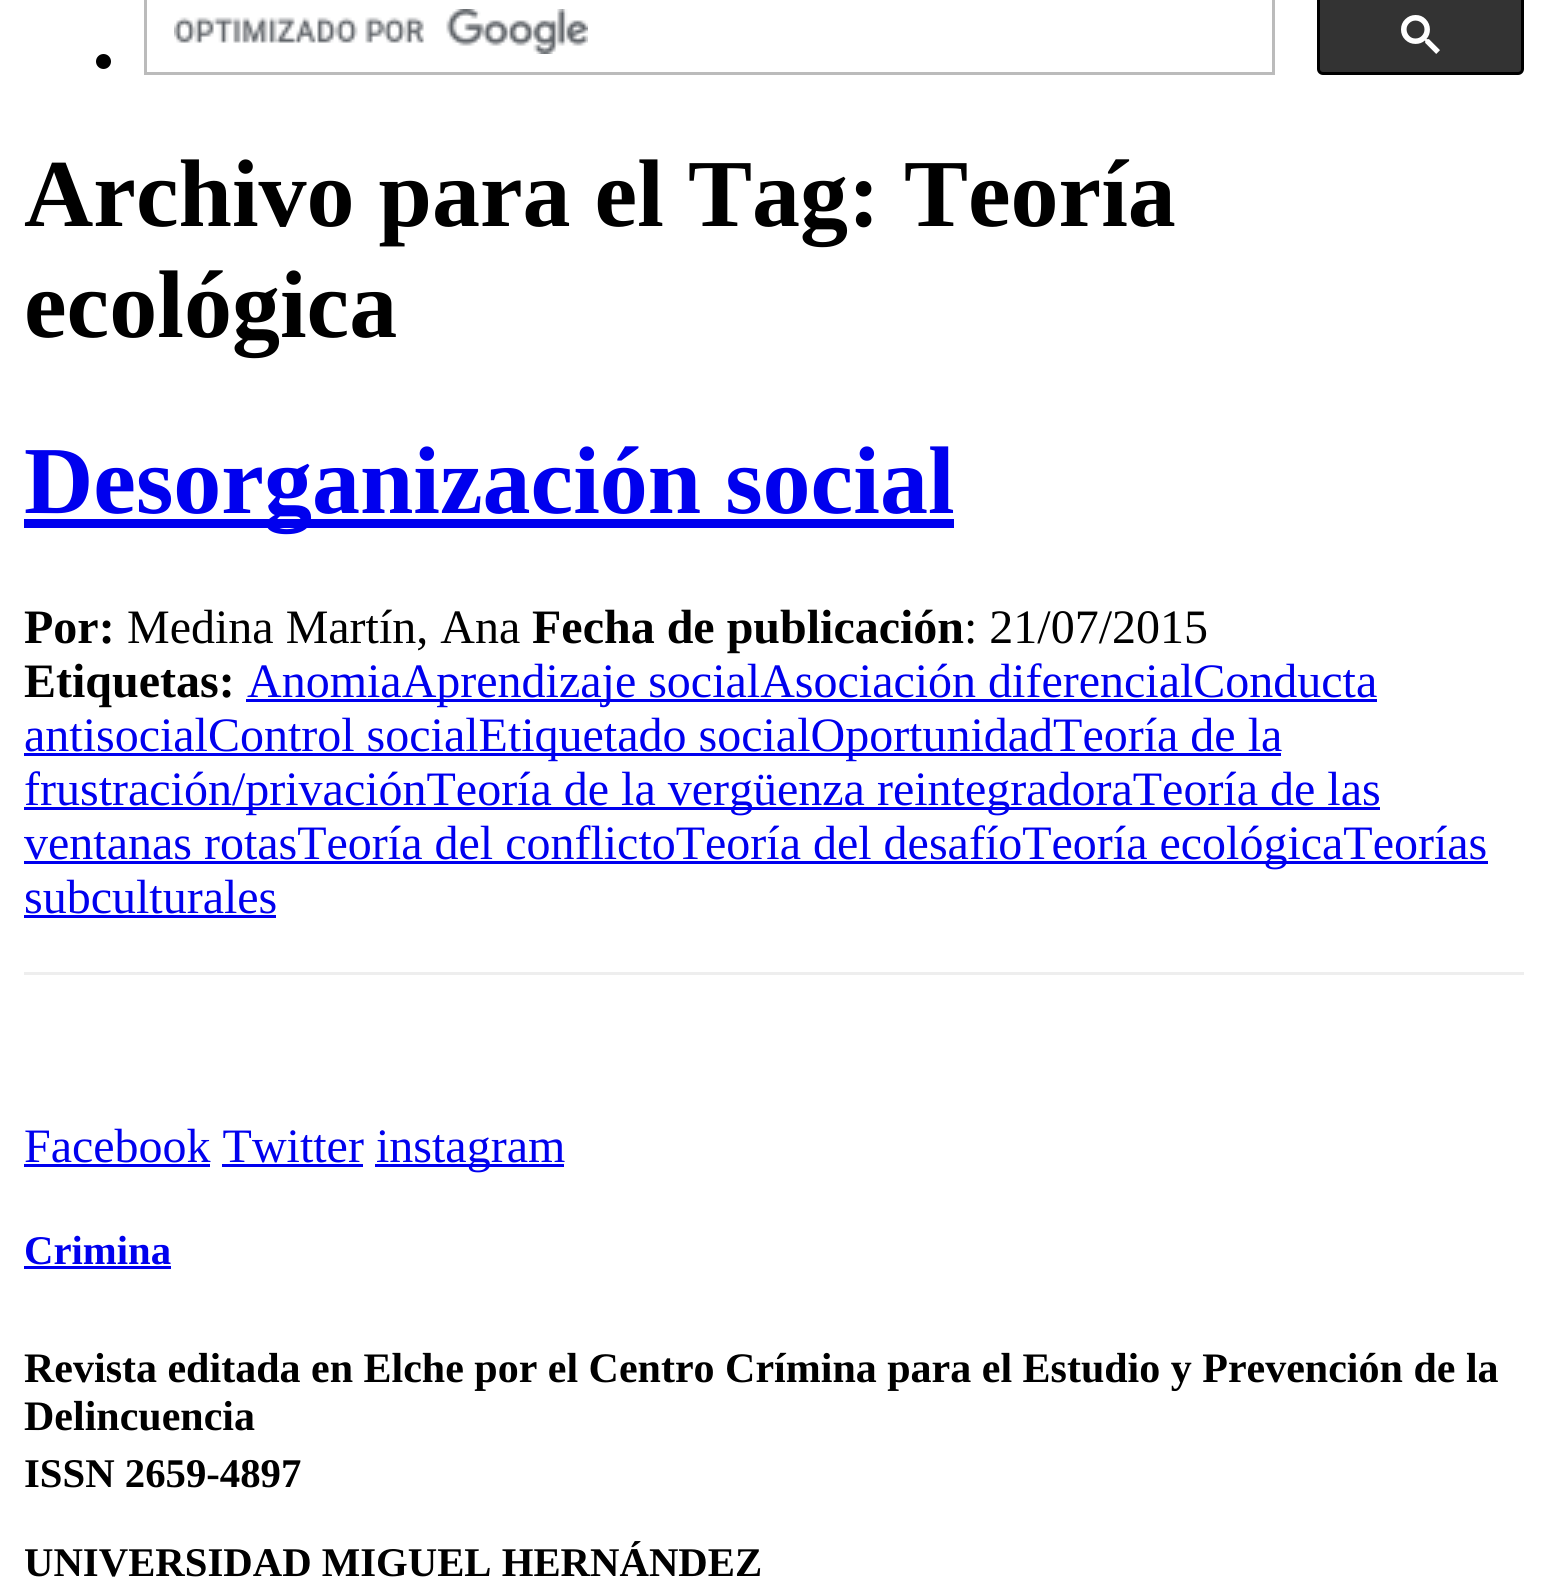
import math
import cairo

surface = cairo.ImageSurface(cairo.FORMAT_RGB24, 1546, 1593)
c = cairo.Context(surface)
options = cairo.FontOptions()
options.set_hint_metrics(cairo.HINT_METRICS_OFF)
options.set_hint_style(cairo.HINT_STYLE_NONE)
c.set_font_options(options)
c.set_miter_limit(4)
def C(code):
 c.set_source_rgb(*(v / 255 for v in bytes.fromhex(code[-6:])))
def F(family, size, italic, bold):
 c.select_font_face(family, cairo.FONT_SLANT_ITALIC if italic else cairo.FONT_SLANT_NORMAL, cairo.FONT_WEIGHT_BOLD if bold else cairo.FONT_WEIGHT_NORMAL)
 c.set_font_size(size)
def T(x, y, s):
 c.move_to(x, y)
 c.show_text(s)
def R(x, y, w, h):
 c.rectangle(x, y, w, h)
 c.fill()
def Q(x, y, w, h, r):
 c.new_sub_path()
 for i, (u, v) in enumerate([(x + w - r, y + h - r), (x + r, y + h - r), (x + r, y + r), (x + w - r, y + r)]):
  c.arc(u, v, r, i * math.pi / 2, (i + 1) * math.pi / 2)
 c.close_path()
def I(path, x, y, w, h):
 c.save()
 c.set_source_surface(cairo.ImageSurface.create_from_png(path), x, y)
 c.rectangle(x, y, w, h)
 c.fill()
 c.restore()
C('ffffff')
c.paint()
C('000000')
c.arc(103.5,61.5,7.5,0,2 * math.pi)
c.fill()
c.rectangle(145.5,-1.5,1128,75)
C('bbbbbb')
c.set_line_width(3)
c.stroke()
I('1.png',174,9,414,45)
C('333333')
Q(1318.5,-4.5,204,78,4.5)
c.fill_preserve()
C('000000')
c.stroke()
I('2.png',1401,15,39,39)
F('Liberation Serif',96,0,1)
T(24,226,'Archivo para el Tag: Teoría')
T(24,337,'ecológica')
C('0000ee')
R(24,519,930,9)
T(24,513,'Desorganización social')
F('Liberation Serif',48,0,1)
C('000000')
T(24,643,'Por:')
F('Liberation Serif',48,0,0)
T(127,643,'Medina Martín, Ana')
F('Liberation Serif',48,0,1)
T(532,643,'Fecha de publicación')
F('Liberation Serif',48,0,0)
T(964,643,': 21/07/2015')
F('Liberation Serif',48,0,1)
T(24,697,'Etiquetas:')
C('0000ee')
R(246,699,1131,3)
F('Liberation Serif',48,0,0)
T(247,697,'AnomiaAprendizaje socialAsociación diferencialConducta')
R(24,753,1257,3)
T(24,751,'antisocialControl socialEtiquetado socialOportunidadTeoría de la')
R(24,807,1356,3)
T(24,805,'frustración/privaciónTeoría de la vergüenza reintegradoraTeoría de las')
R(24,861,1464,3)
T(24,859,'ventanas rotasTeoría del conflictoTeoría del desafíoTeoría ecológicaTeorías')
T(24,913,'subculturales')
R(24,915,252,3)
C('eeeeee')
R(24,972,1500,3)
C('0000ee')
T(24,1162,'Facebook Twitter')
R(24,1164,186,3)
R(375,1164,189,3)
T(376,1162,'instagram')
R(222,1164,141,3)
F('Liberation Serif',40.75,0,1)
T(24,1264,'Crimina')
R(24,1266,147,3)
F('Liberation Serif',42,0,1)
C('000000')
T(24,1382,'Revista editada en Elche por el Centro Crímina para el Estudio y Prevención de la')
T(24,1430,'Delincuencia')
F('Liberation Serif',40.75,0,1)
T(24,1487,'ISSN 2659-4897')
T(24,1576,'UNIVERSIDAD MIGUEL HERNÁNDEZ')
surface.write_to_png('o.png')
